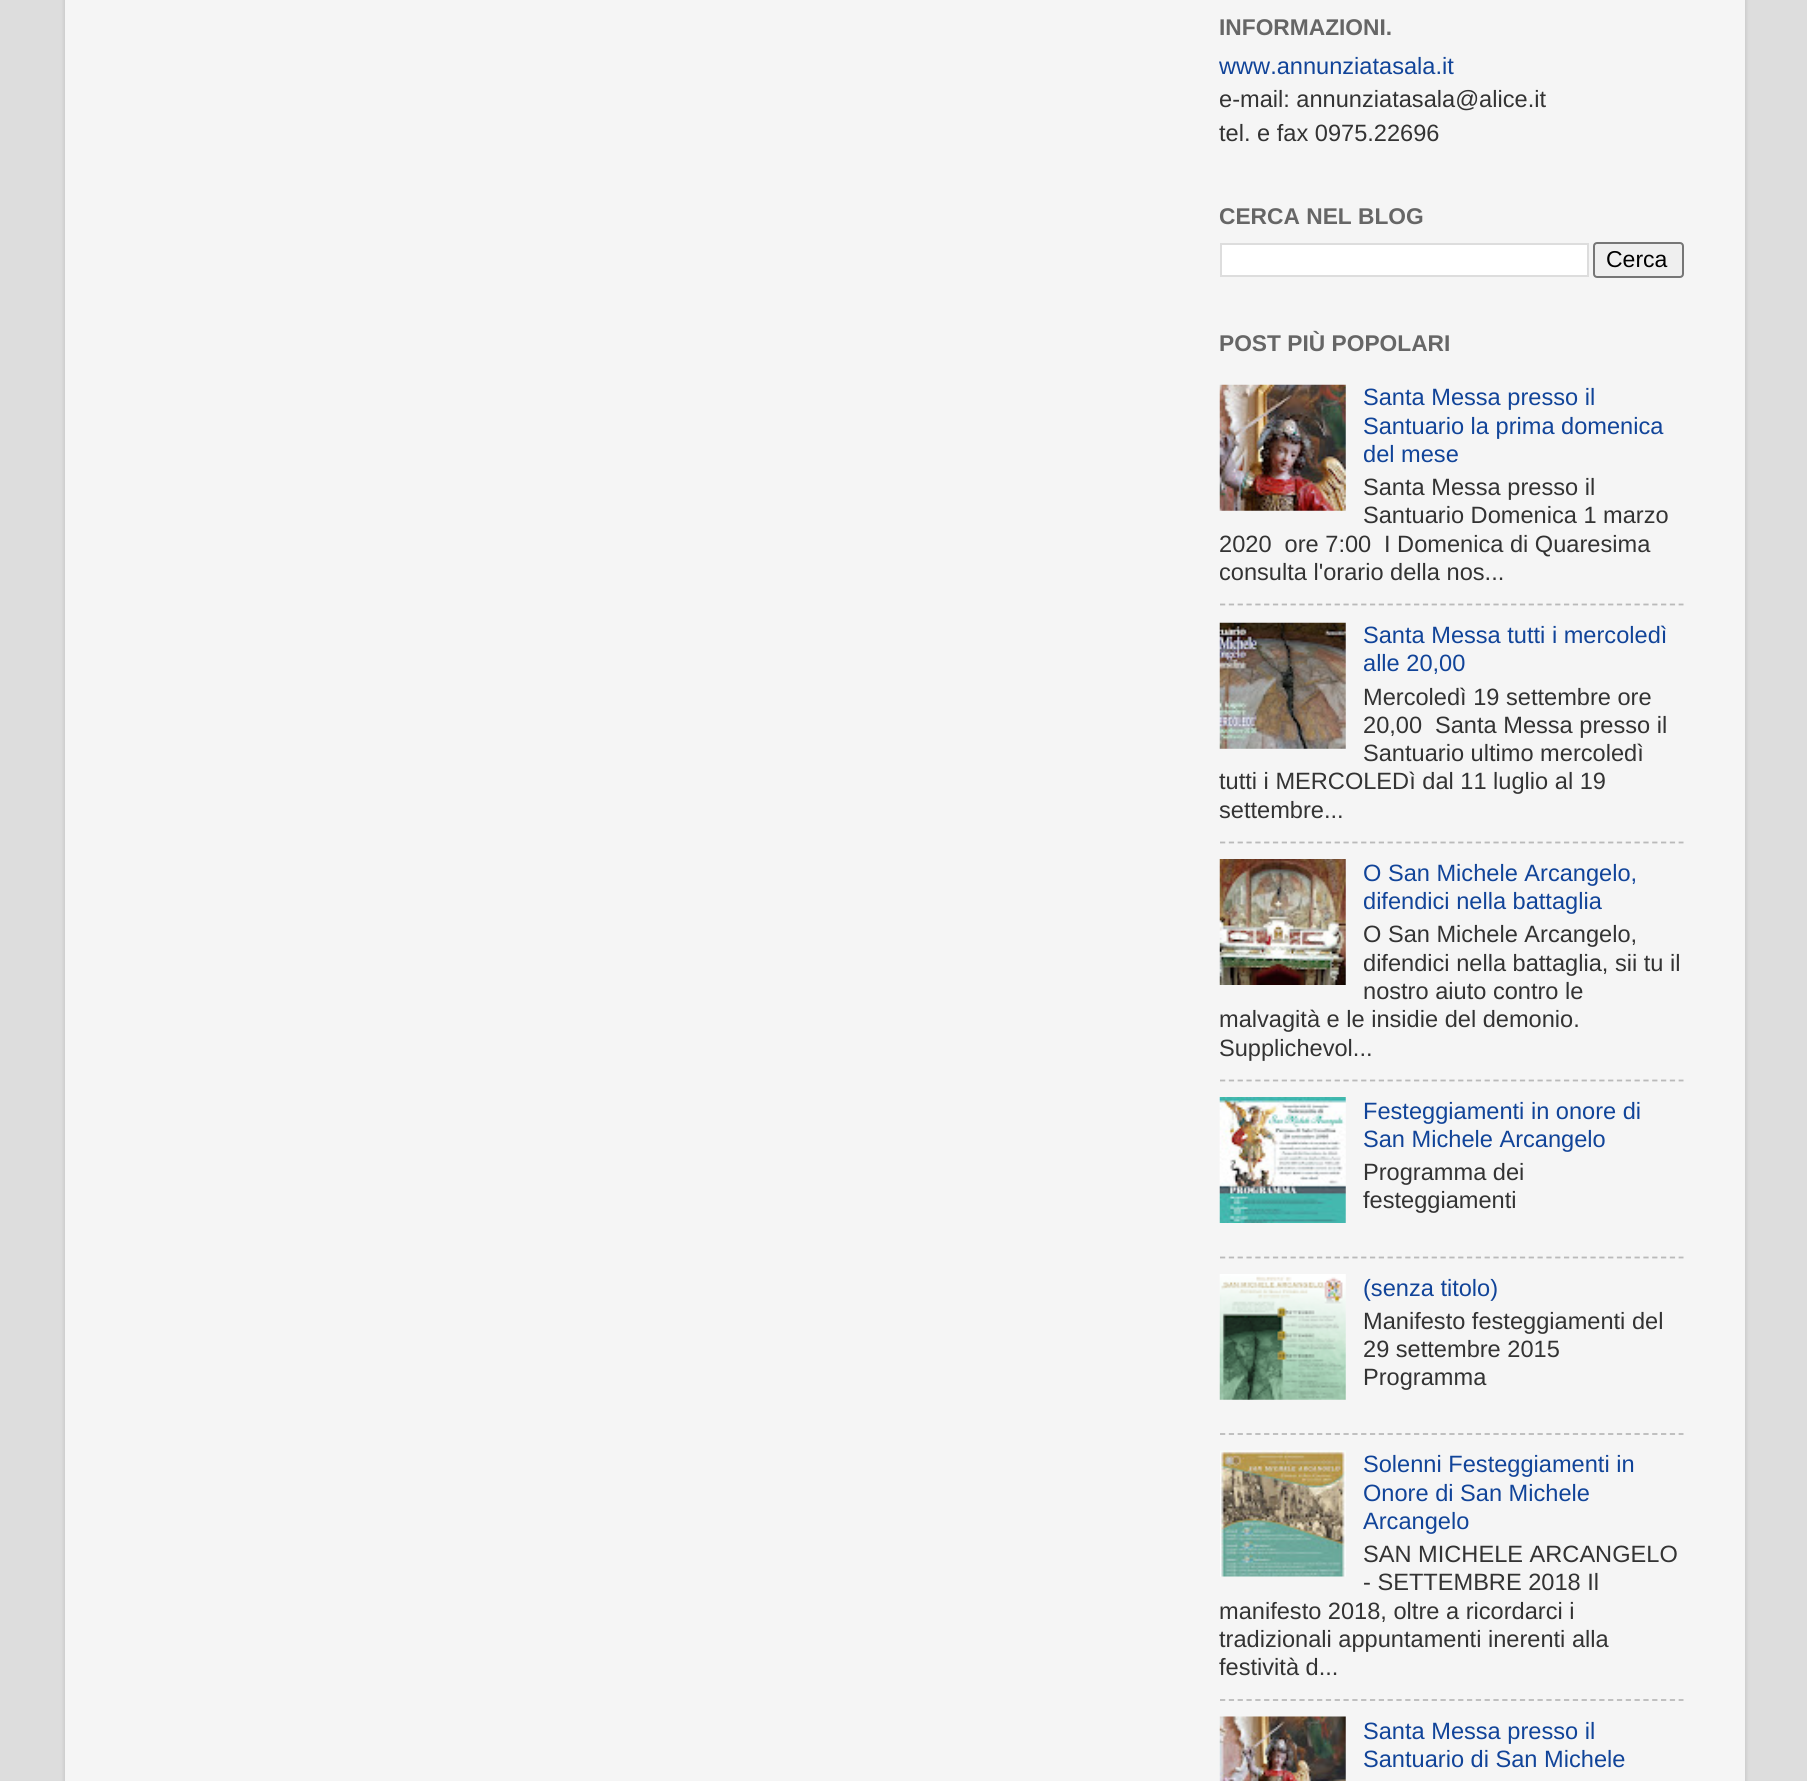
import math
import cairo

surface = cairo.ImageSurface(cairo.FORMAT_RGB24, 1807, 1781)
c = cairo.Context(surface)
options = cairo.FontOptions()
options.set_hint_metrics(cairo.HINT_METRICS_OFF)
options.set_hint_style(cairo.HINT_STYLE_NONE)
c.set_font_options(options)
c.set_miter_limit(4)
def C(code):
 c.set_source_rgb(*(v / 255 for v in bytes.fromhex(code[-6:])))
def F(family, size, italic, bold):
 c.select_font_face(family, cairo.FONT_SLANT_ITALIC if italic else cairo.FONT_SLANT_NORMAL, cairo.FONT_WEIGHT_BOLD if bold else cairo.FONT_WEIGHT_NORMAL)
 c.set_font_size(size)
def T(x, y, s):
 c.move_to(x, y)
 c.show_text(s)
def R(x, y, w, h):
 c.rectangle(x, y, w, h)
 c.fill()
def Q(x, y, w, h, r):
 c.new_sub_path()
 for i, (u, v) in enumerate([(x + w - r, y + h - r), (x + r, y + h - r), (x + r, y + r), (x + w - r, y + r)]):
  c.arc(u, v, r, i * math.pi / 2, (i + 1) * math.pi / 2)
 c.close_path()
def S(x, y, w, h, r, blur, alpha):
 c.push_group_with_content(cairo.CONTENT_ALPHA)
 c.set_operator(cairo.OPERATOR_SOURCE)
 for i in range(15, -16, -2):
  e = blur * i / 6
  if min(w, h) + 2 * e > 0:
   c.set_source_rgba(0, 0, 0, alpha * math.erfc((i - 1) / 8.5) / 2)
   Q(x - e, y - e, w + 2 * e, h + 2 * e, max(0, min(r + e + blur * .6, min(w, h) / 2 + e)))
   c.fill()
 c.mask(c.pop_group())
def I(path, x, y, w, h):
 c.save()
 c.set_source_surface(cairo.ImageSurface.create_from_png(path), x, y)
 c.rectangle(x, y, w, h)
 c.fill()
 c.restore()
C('dddddd')
c.paint()
c.save()
c.set_fill_rule(cairo.FILL_RULE_EVEN_ODD)
c.new_path()
c.move_to(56,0)
c.line_to(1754,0)
c.line_to(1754,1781)
c.line_to(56,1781)
c.close_path()
c.move_to(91,-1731)
c.line_to(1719,-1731)
c.curve_to(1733.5,-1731,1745,-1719.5,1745,-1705)
c.line_to(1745,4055)
c.curve_to(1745,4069.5,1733.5,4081,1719,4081)
c.line_to(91,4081)
c.curve_to(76.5,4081,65,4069.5,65,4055)
c.line_to(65,-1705)
c.curve_to(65,-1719.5,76.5,-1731,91,-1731)
c.close_path()
c.clip()
C('000000')
S(65,-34,1680,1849,26,2.5,.15)
c.restore()
c.set_source_rgba(1,1,1,0.7)
R(65,0,1680,1781)
F('Liberation Sans',22.75,0,1)
C('666666')
T(1219,35,'INFORMAZIONI.')
F('Liberation Sans',23.6,0,0)
C('114499')
T(1219,74,'www.annunziatasala.it')
C('333333')
T(1219,107,'e-mail: annunziatasala@alice.it')
T(1219,141,'tel. e fax 0975.22696')
F('Liberation Sans',22.75,0,1)
C('666666')
T(1219,224,'CERCA NEL BLOG')
C('ffffff')
c.rectangle(1221,244,367,32)
c.fill_preserve()
C('dddddd')
c.stroke()
C('efefef')
Q(1594,243,89,34,3)
c.fill_preserve()
C('767676')
c.stroke()
F('Liberation Sans',23,0,0)
C('000000')
T(1606,267,'Cerca')
F('Liberation Sans',22.75,0,1)
C('666666')
T(1219,351,'POST PIÙ POPOLARI')
I('1.png',1219,384,127,127)
F('Liberation Sans',23.6,0,0)
C('114499')
T(1363,405,'Santa Messa presso il')
T(1363,434,'Santuario la prima domenica')
T(1363,462,'del mese')
C('333333')
T(1363,495,'Santa Messa presso il')
T(1363,523,'Santuario Domenica 1 marzo')
T(1219,552,'2020  ore 7:00')
T(1384,552,'I Domenica di Quaresima')
T(1219,580,'consulta l\'orario della nos...')
c.new_path()
c.move_to(1220,604.5)
c.line_to(1683.5,604.5)
C('bababa')
c.set_line_width(1.8)
c.set_dash([5.25,3.57])
c.stroke()
I('2.png',1219,622,127,127)
C('114499')
T(1363,643,'Santa Messa tutti i mercoledì')
T(1363,671,'alle 20,00')
C('333333')
T(1363,705,'Mercoledì 19 settembre ore')
T(1363,733,'20,00')
T(1435,733,'Santa Messa presso il')
T(1363,761,'Santuario ultimo mercoledì')
T(1219,789,'tutti i MERCOLEDì dal 11 luglio al 19')
T(1219,818,'settembre...')
c.new_path()
c.move_to(1220,842.5)
c.line_to(1683.5,842.5)
C('bababa')
c.stroke()
I('3.png',1219,859,127,126)
C('114499')
T(1363,881,'O San Michele Arcangelo,')
T(1363,909,'difendici nella battaglia')
C('333333')
T(1363,942,'O San Michele Arcangelo,')
T(1363,971,'difendici nella battaglia, sii tu il')
T(1363,999,'nostro aiuto contro le')
T(1219,1027,'malvagità e le insidie del demonio.')
T(1219,1056,'Supplichevol...')
c.new_path()
c.move_to(1220,1080.5)
c.line_to(1683.5,1080.5)
C('bababa')
c.stroke()
I('4.png',1219,1097,127,126)
C('114499')
T(1363,1119,'Festeggiamenti in onore di')
T(1363,1147,'San Michele Arcangelo')
C('333333')
T(1363,1180,'Programma dei')
T(1363,1208,'festeggiamenti')
c.new_path()
c.move_to(1220,1257.5)
c.line_to(1683.5,1257.5)
C('bababa')
c.stroke()
I('5.png',1219,1274,127,126)
C('114499')
T(1363,1296,'(senza titolo)')
C('333333')
T(1363,1329,'Manifesto festeggiamenti del')
T(1363,1357,'29 settembre 2015')
T(1363,1385,'Programma')
c.new_path()
c.move_to(1220,1434)
c.line_to(1683.5,1434)
C('bababa')
c.stroke()
I('6.png',1220,1450,126,127)
C('114499')
T(1363,1472,'Solenni Festeggiamenti in')
T(1363,1501,'Onore di San Michele')
T(1363,1529,'Arcangelo')
C('333333')
T(1363,1562,'SAN MICHELE ARCANGELO')
T(1363,1590,'- SETTEMBRE 2018 Il')
T(1219,1619,'manifesto 2018, oltre a ricordarci i')
T(1219,1647,'tradizionali appuntamenti inerenti alla')
T(1219,1675,'festività d...')
c.new_path()
c.move_to(1220,1700)
c.line_to(1683.5,1700)
C('bababa')
c.stroke()
I('7.png',1219,1716,127,65)
C('114499')
T(1363,1739,'Santa Messa presso il')
T(1363,1767,'Santuario di San Michele')
surface.write_to_png('o.png')
